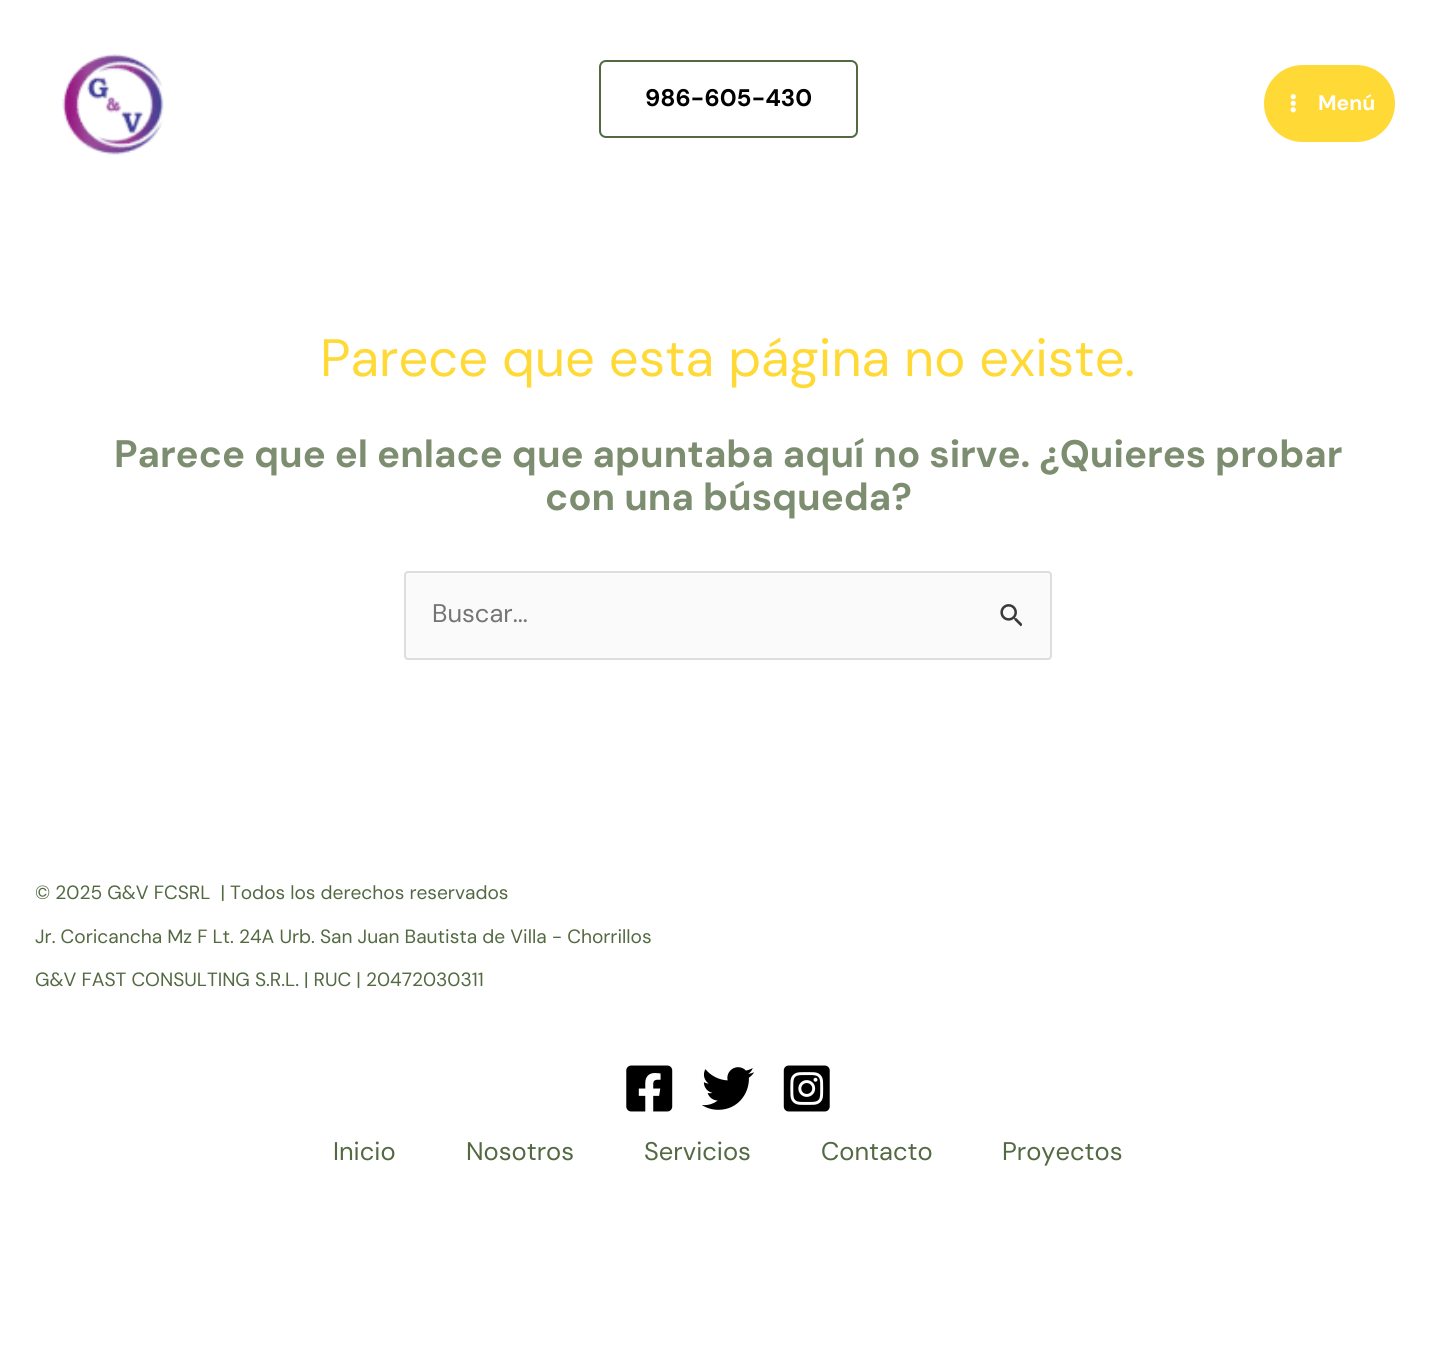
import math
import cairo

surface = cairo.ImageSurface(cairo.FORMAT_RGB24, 1455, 1370)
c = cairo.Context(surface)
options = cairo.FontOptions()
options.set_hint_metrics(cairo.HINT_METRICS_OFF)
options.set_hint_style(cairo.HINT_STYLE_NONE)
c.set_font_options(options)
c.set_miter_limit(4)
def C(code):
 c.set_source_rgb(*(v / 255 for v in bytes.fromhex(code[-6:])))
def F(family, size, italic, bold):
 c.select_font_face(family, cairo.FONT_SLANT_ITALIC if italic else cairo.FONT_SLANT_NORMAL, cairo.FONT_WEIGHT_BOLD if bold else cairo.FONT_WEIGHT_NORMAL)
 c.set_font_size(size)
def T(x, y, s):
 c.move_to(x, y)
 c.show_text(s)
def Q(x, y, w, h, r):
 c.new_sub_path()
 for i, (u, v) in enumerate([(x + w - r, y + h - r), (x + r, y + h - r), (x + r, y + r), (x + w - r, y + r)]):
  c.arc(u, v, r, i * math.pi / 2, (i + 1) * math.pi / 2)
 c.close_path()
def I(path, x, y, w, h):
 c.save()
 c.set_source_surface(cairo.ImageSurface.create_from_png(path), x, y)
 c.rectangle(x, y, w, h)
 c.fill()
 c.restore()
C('ffffff')
c.paint()
I('1.png',61,54,103,102)
Q(600,61,257,76,6)
C('536942')
c.stroke()
F('DM Sans',24,0,1)
C('000000')
T(645,106,'986-605-430')
C('ffd936')
Q(1264,65,131,77,38.5)
c.fill()
I('2.png',1290,94,6,19)
F('DM Sans',21,0,1)
C('ffffff')
T(1318,110,'Menú')
F('DM Sans',52.5,0,0)
C('ffd936')
T(320,376,'Parece que esta página no existe.')
F('DM Sans',38.3,0,1)
C('7d8e70')
T(114,467,'Parece que el enlace que apuntaba aquí no sirve. ¿Quieres probar')
T(545,510,'con una búsqueda?')
C('fafafa')
Q(405,572,646,87,3)
c.fill_preserve()
C('dddddd')
c.stroke()
F('DM Sans',25.5,0,0)
C('757575')
T(432,622,'Buscar...')
I('3.png',1000,604,22,23)
F('DM Sans',19.15,0,0)
C('536942')
T(35,899,'© 2025 G&V FCSRL  | Todos los derechos reservados')
T(35,943,'Jr. Coricancha Mz F Lt. 24A Urb. San Juan Bautista de Villa - Chorrillos')
T(35,986,'G&V FAST CONSULTING S.R.L. | RUC | 20472030311')
I('4.png',626,1065,47,47)
I('5.png',702,1067,52,43)
I('6.png',783,1065,47,47)
F('DM Sans',25.5,0,0)
T(333,1160,'Inicio')
T(466,1160,'Nosotros')
T(644,1160,'Servicios')
T(821,1160,'Contacto')
T(1002,1160,'Proyectos')
surface.write_to_png('o.png')
